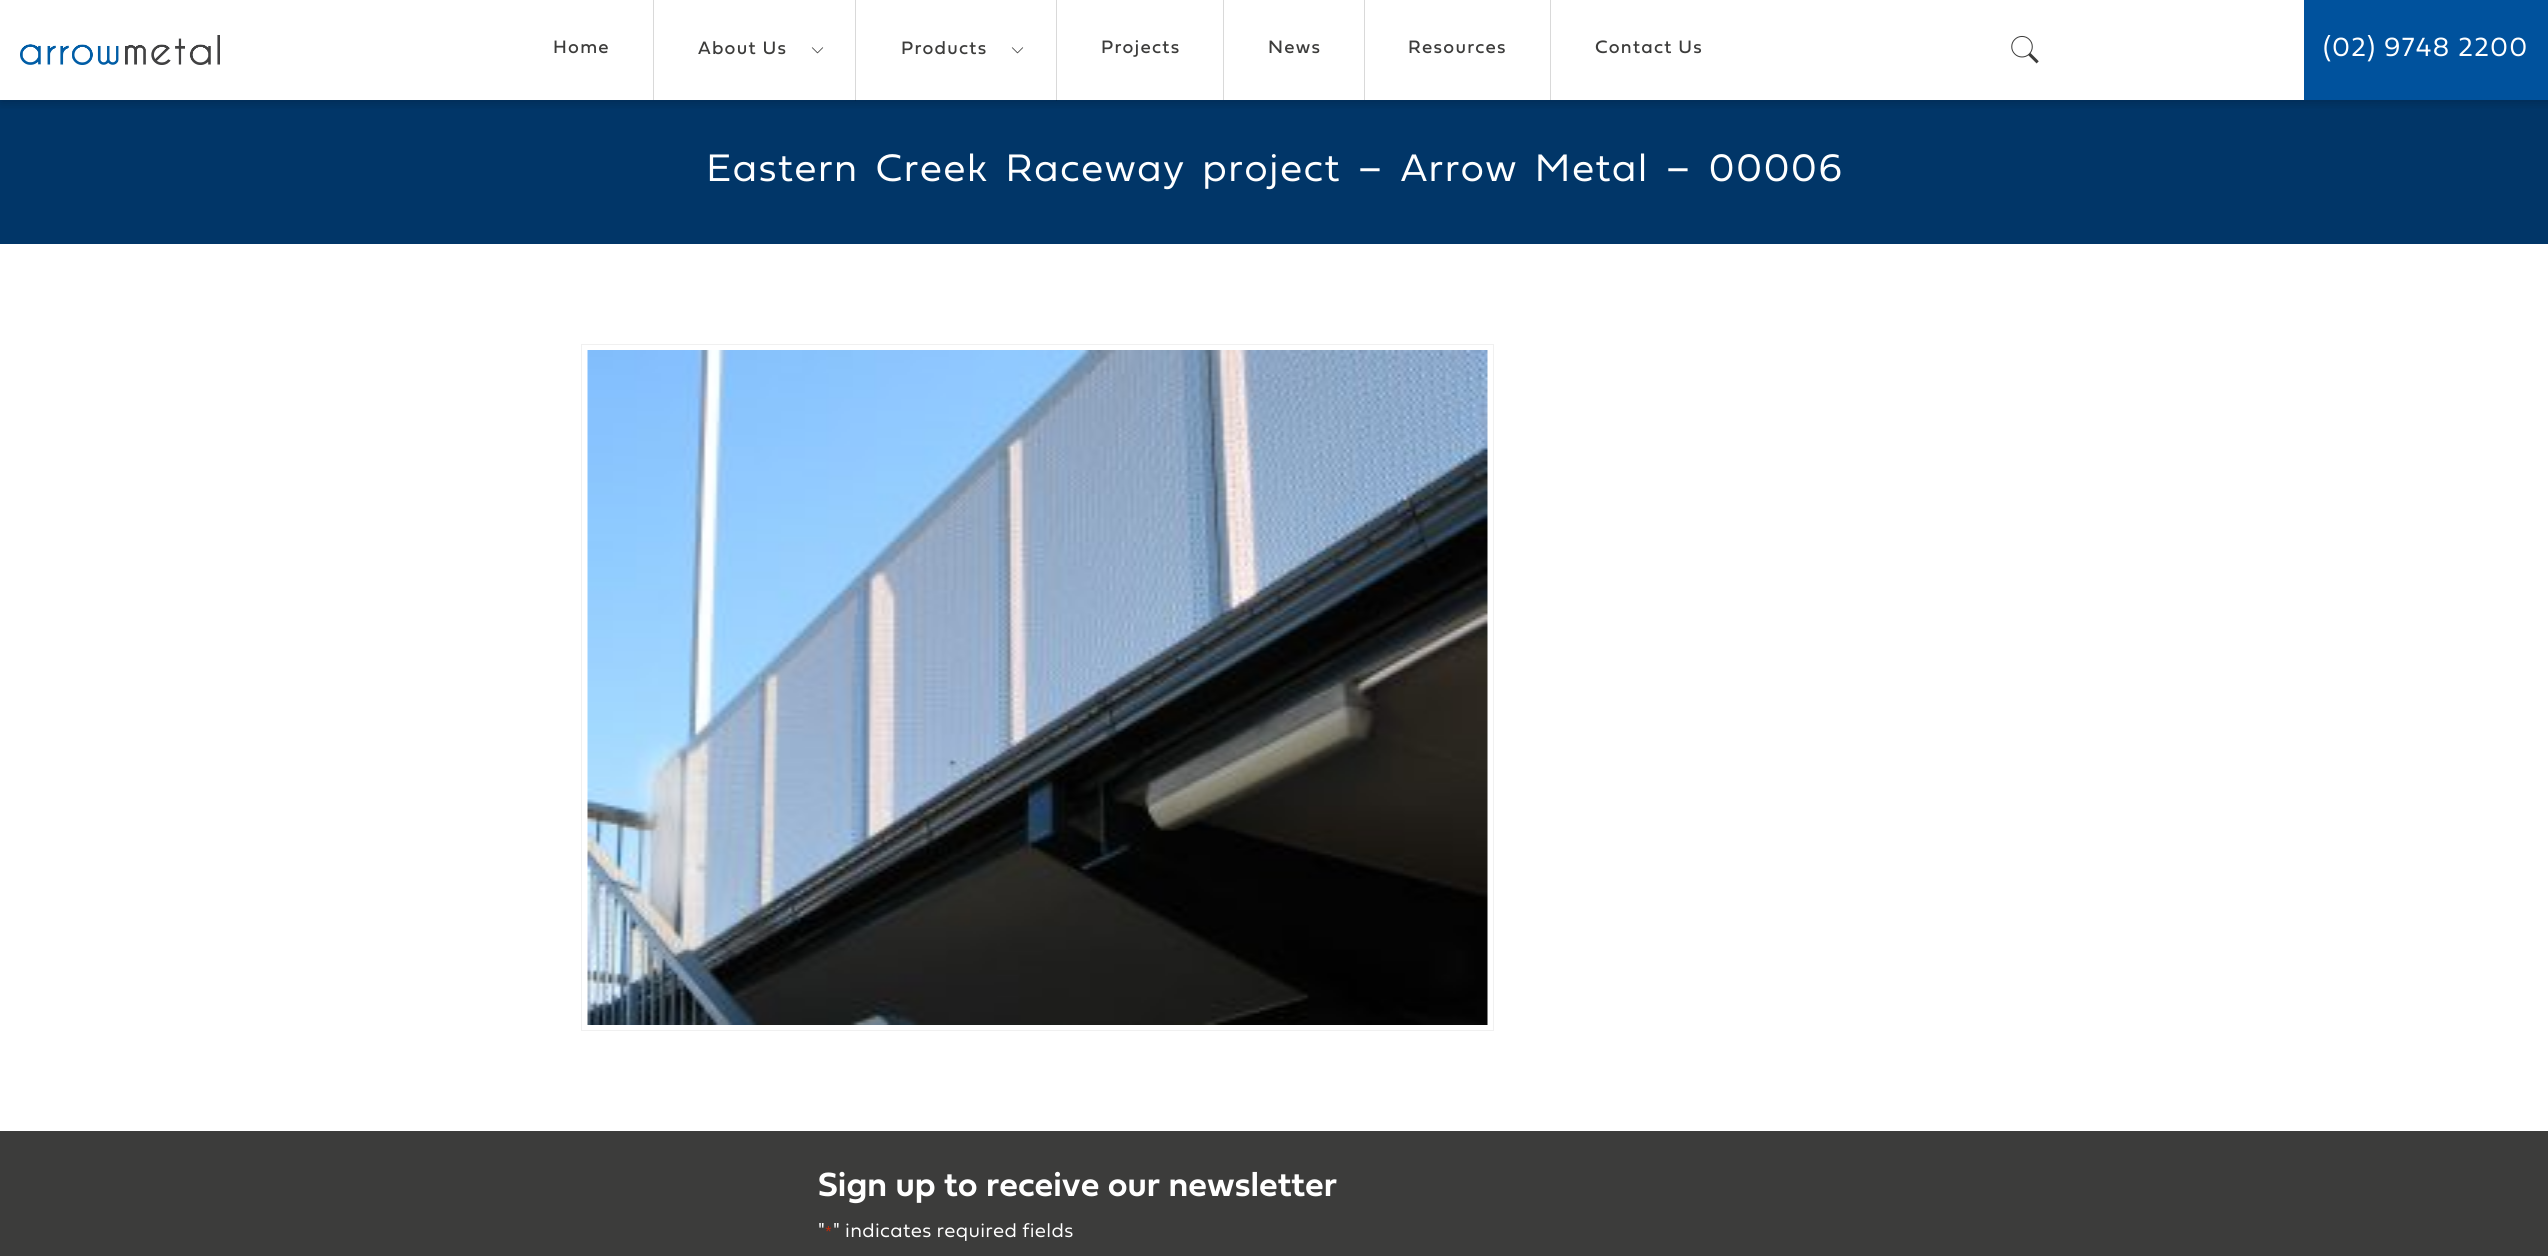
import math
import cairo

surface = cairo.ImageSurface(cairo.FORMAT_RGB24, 2548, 1256)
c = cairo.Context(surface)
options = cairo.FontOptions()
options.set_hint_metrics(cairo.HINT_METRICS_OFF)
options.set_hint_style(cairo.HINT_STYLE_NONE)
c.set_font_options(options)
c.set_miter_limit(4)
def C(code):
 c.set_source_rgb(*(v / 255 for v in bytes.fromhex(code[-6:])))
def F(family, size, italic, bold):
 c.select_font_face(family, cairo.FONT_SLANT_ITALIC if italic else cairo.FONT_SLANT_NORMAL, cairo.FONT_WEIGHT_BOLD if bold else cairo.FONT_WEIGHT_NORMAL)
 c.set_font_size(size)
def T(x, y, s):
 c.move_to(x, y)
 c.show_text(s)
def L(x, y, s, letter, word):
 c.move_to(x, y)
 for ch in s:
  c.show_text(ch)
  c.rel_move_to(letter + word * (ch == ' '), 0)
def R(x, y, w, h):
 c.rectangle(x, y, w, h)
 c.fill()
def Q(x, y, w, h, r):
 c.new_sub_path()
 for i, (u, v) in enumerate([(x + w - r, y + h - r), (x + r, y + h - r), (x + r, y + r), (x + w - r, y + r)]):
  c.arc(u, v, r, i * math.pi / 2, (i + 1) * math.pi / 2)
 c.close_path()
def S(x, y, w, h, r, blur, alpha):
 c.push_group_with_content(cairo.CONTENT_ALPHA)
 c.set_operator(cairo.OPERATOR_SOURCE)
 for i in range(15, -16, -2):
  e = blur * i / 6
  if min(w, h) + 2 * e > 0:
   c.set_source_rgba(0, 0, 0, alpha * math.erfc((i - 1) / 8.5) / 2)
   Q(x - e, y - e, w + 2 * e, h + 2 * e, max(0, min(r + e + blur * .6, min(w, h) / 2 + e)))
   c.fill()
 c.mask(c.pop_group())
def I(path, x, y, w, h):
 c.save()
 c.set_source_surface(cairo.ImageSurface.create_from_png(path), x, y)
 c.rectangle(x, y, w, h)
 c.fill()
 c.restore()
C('ffffff')
c.paint()
C('013668')
R(0,100,2548,144)
c.save()
c.rectangle(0,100,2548,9)
c.clip()
C('000000')
S(1,1,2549,100,0,6,.25)
c.restore()
I('1.png',20,35,200,30)
F('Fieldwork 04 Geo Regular',18.75,0,0)
C('3c3c3b')
L(553,53,'Home',1.25,0)
C('d9d9d9')
R(653,0,1,100)
C('3c3c3b')
L(698,54,'About Us',1.25,0)
I('2.png',811,47,13,7)
c.set_source_rgba(0,0,0,0.15)
R(855,0,1,101)
C('3c3c3b')
L(901,54,'Products',1.25,0)
I('2.png',1011,47,13,7)
c.set_source_rgba(0,0,0,0.15)
R(1056,0,1,101)
C('3c3c3b')
L(1101,53,'Projects',1.25,0)
C('d9d9d9')
R(1223,0,1,100)
C('3c3c3b')
L(1268,53,'News',1.25,0)
C('d9d9d9')
R(1364,0,1,100)
C('3c3c3b')
L(1408,53,'Resources',1.25,0)
C('d9d9d9')
R(1550,0,1,100)
C('3c3c3b')
L(1595,53,'Contact Us',1.25,0)
I('3.png',2011,35,28,29)
C('00529d')
R(2304,0,244,100)
F('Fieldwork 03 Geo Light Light',27.5,0,0)
C('ffffff')
L(2323,56,'(02) 9748 2200',1.25,0)
F('Fieldwork 03 Geo Light Light',40,0,0)
L(706,181,'Eastern Creek Raceway project – Arrow Metal – 00006',1.25,6.25)
c.rectangle(581.5,344.5,912,686)
C('f0f0f0')
c.set_line_width(1)
c.stroke()
I('4.png',587,350,901,675)
C('3c3c3b')
R(0,1131,2548,125)
F('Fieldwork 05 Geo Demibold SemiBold',35,0,0)
C('ffffff')
T(818,1196,'Sign up to receive our newsletter')
F('Fieldwork 03 Geo Light Light',20,0,0)
L(818,1237,'"',.3,0)
F('Fieldwork 03 Geo Light Light',16,0,0)
C('c02b0a')
L(825,1237,'*',.3,0)
F('Fieldwork 03 Geo Light Light',20,0,0)
C('ffffff')
L(833,1237,'" indicates required fields',.3,0)
surface.write_to_png('o.png')
